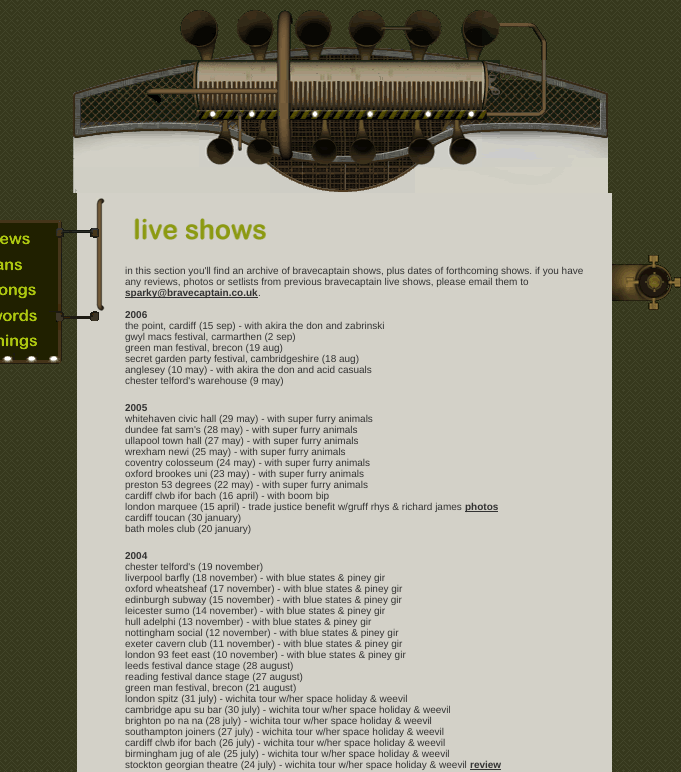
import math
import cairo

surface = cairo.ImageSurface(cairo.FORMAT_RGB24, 681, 772)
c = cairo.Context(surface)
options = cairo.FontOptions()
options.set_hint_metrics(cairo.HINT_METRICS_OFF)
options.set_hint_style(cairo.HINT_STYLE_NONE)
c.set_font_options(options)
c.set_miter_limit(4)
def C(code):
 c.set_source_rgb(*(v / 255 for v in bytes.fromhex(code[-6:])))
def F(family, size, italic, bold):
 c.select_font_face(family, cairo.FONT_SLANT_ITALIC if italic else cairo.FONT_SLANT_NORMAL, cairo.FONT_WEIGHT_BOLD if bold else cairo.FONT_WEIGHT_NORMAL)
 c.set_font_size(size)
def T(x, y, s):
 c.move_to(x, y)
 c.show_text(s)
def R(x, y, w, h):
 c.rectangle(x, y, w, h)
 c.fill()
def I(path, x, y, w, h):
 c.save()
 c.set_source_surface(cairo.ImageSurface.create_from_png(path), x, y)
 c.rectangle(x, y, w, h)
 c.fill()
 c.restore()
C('ffffff')
c.paint()
I('1.png',0,0,681,772)
C('162412')
R(180,26,1,5)
I('2.png',181,10,97,50)
I('3.png',278,10,13,50)
I('4.png',291,10,191,50)
I('5.png',482,10,65,50)
I('6.png',118,65,63,15)
I('7.png',73,80,108,23)
I('8.png',73,103,108,35)
I('9.png',181,60,18,78)
I('10.png',73,138,126,29)
I('11.png',199,60,283,20)
I('12.png',199,80,283,23)
I('13.png',199,103,283,16)
I('14.png',199,119,79,12)
I('15.png',278,119,13,12)
I('16.png',291,119,191,12)
I('17.png',199,131,79,36)
I('18.png',278,131,13,36)
I('19.png',291,131,191,36)
I('20.png',482,60,18,43)
I('21.png',500,60,65,20)
I('22.png',500,80,108,23)
I('23.png',482,103,18,36)
I('24.png',500,103,108,36)
I('25.png',482,139,126,28)
I('26.png',73,167,197,26)
I('27.png',270,167,145,26)
I('28.png',415,167,193,26)
C('d3d1c8')
R(77,193,38,579)
I('35.png',96,204,7,100)
I('29.png',0,220,99,33)
I('30.png',0,253,62,26)
I('31.png',0,279,62,25)
I('36.png',96,304,9,7)
I('32.png',0,304,99,26)
I('33.png',0,330,62,34)
I('34.png',96,198,9,6)
R(115,193,497,579)
I('37.png',134,218,132,22)
F('Liberation Sans',10,0,0)
C('333333')
T(125,274,'in this section you\'ll find an archive of bravecaptain shows, plus dates of forthcoming shows. if you have')
T(125,285,'any reviews, photos or setlists from previous bravecaptain live shows, please email them to')
R(125,297,133,1)
F('Liberation Sans',10,0,1)
T(125,296,'sparky@bravecaptain.co.uk')
F('Liberation Sans',10,0,0)
T(258,296,'.')
F('Liberation Sans',10,0,1)
T(125,318,'2006')
F('Liberation Sans',10,0,0)
T(125,329,'the point, cardiff (15 sep) - with akira the don and zabrinski')
T(125,340,'gwyl macs festival, carmarthen (2 sep)')
T(125,351,'green man festival, brecon (19 aug)')
T(125,362,'secret garden party festival, cambridgeshire (18 aug)')
T(125,373,'anglesey (10 may) - with akira the don and acid casuals')
T(125,384,'chester telford\'s warehouse (9 may)')
F('Liberation Sans',10,0,1)
T(125,411,'2005')
F('Liberation Sans',10,0,0)
T(125,422,'whitehaven civic hall (29 may) - with super furry animals')
T(125,433,'dundee fat sam\'s (28 may) - with super furry animals')
T(125,444,'ullapool town hall (27 may) - with super furry animals')
T(125,455,'wrexham newi (25 may) - with super furry animals')
T(125,466,'coventry colosseum (24 may) - with super furry animals')
T(125,477,'oxford brookes uni (23 may) - with super furry animals')
T(125,488,'preston 53 degrees (22 may) - with super furry animals')
T(125,499,'cardiff clwb ifor bach (16 april) - with boom bip')
T(125,510,'london marquee (15 april) - trade justice benefit w/gruff rhys & richard james')
R(465,511,33,1)
F('Liberation Sans',10,0,1)
T(465,510,'photos')
F('Liberation Sans',10,0,0)
T(125,521,'cardiff toucan (30 january)')
T(125,532,'bath moles club (20 january)')
F('Liberation Sans',10,0,1)
T(125,559,'2004')
F('Liberation Sans',10,0,0)
T(125,570,'chester telford\'s (19 november)')
T(125,581,'liverpool barfly (18 november) - with blue states & piney gir')
T(125,592,'oxford wheatsheaf (17 november) - with blue states & piney gir')
T(125,603,'edinburgh subway (15 november) - with blue states & piney gir')
T(125,614,'leicester sumo (14 november) - with blue states & piney gir')
T(125,625,'hull adelphi (13 november) - with blue states & piney gir')
T(125,636,'nottingham social (12 november) - with blue states & piney gir')
T(125,647,'exeter cavern club (11 november) - with blue states & piney gir')
T(125,658,'london 93 feet east (10 november) - with blue states & piney gir')
T(125,669,'leeds festival dance stage (28 august)')
T(125,680,'reading festival dance stage (27 august)')
T(125,691,'green man festival, brecon (21 august)')
T(125,702,'london spitz (31 july) - wichita tour w/her space holiday & weevil')
T(125,713,'cambridge apu su bar (30 july) - wichita tour w/her space holiday & weevil')
T(125,724,'brighton po na na (28 july) - wichita tour w/her space holiday & weevil')
T(125,735,'southampton joiners (27 july) - wichita tour w/her space holiday & weevil')
T(125,746,'cardiff clwb ifor bach (26 july) - wichita tour w/her space holiday & weevil')
T(125,757,'birmingham jug of ale (25 july) - wichita tour w/her space holiday & weevil')
T(125,768,'stockton georgian theatre (24 july) - wichita tour w/her space holiday & weevil')
F('Liberation Sans',10,0,1)
T(470,768,'review')
R(470,769,31,1)
I('38.png',612,255,69,55)
surface.write_to_png('o.png')
